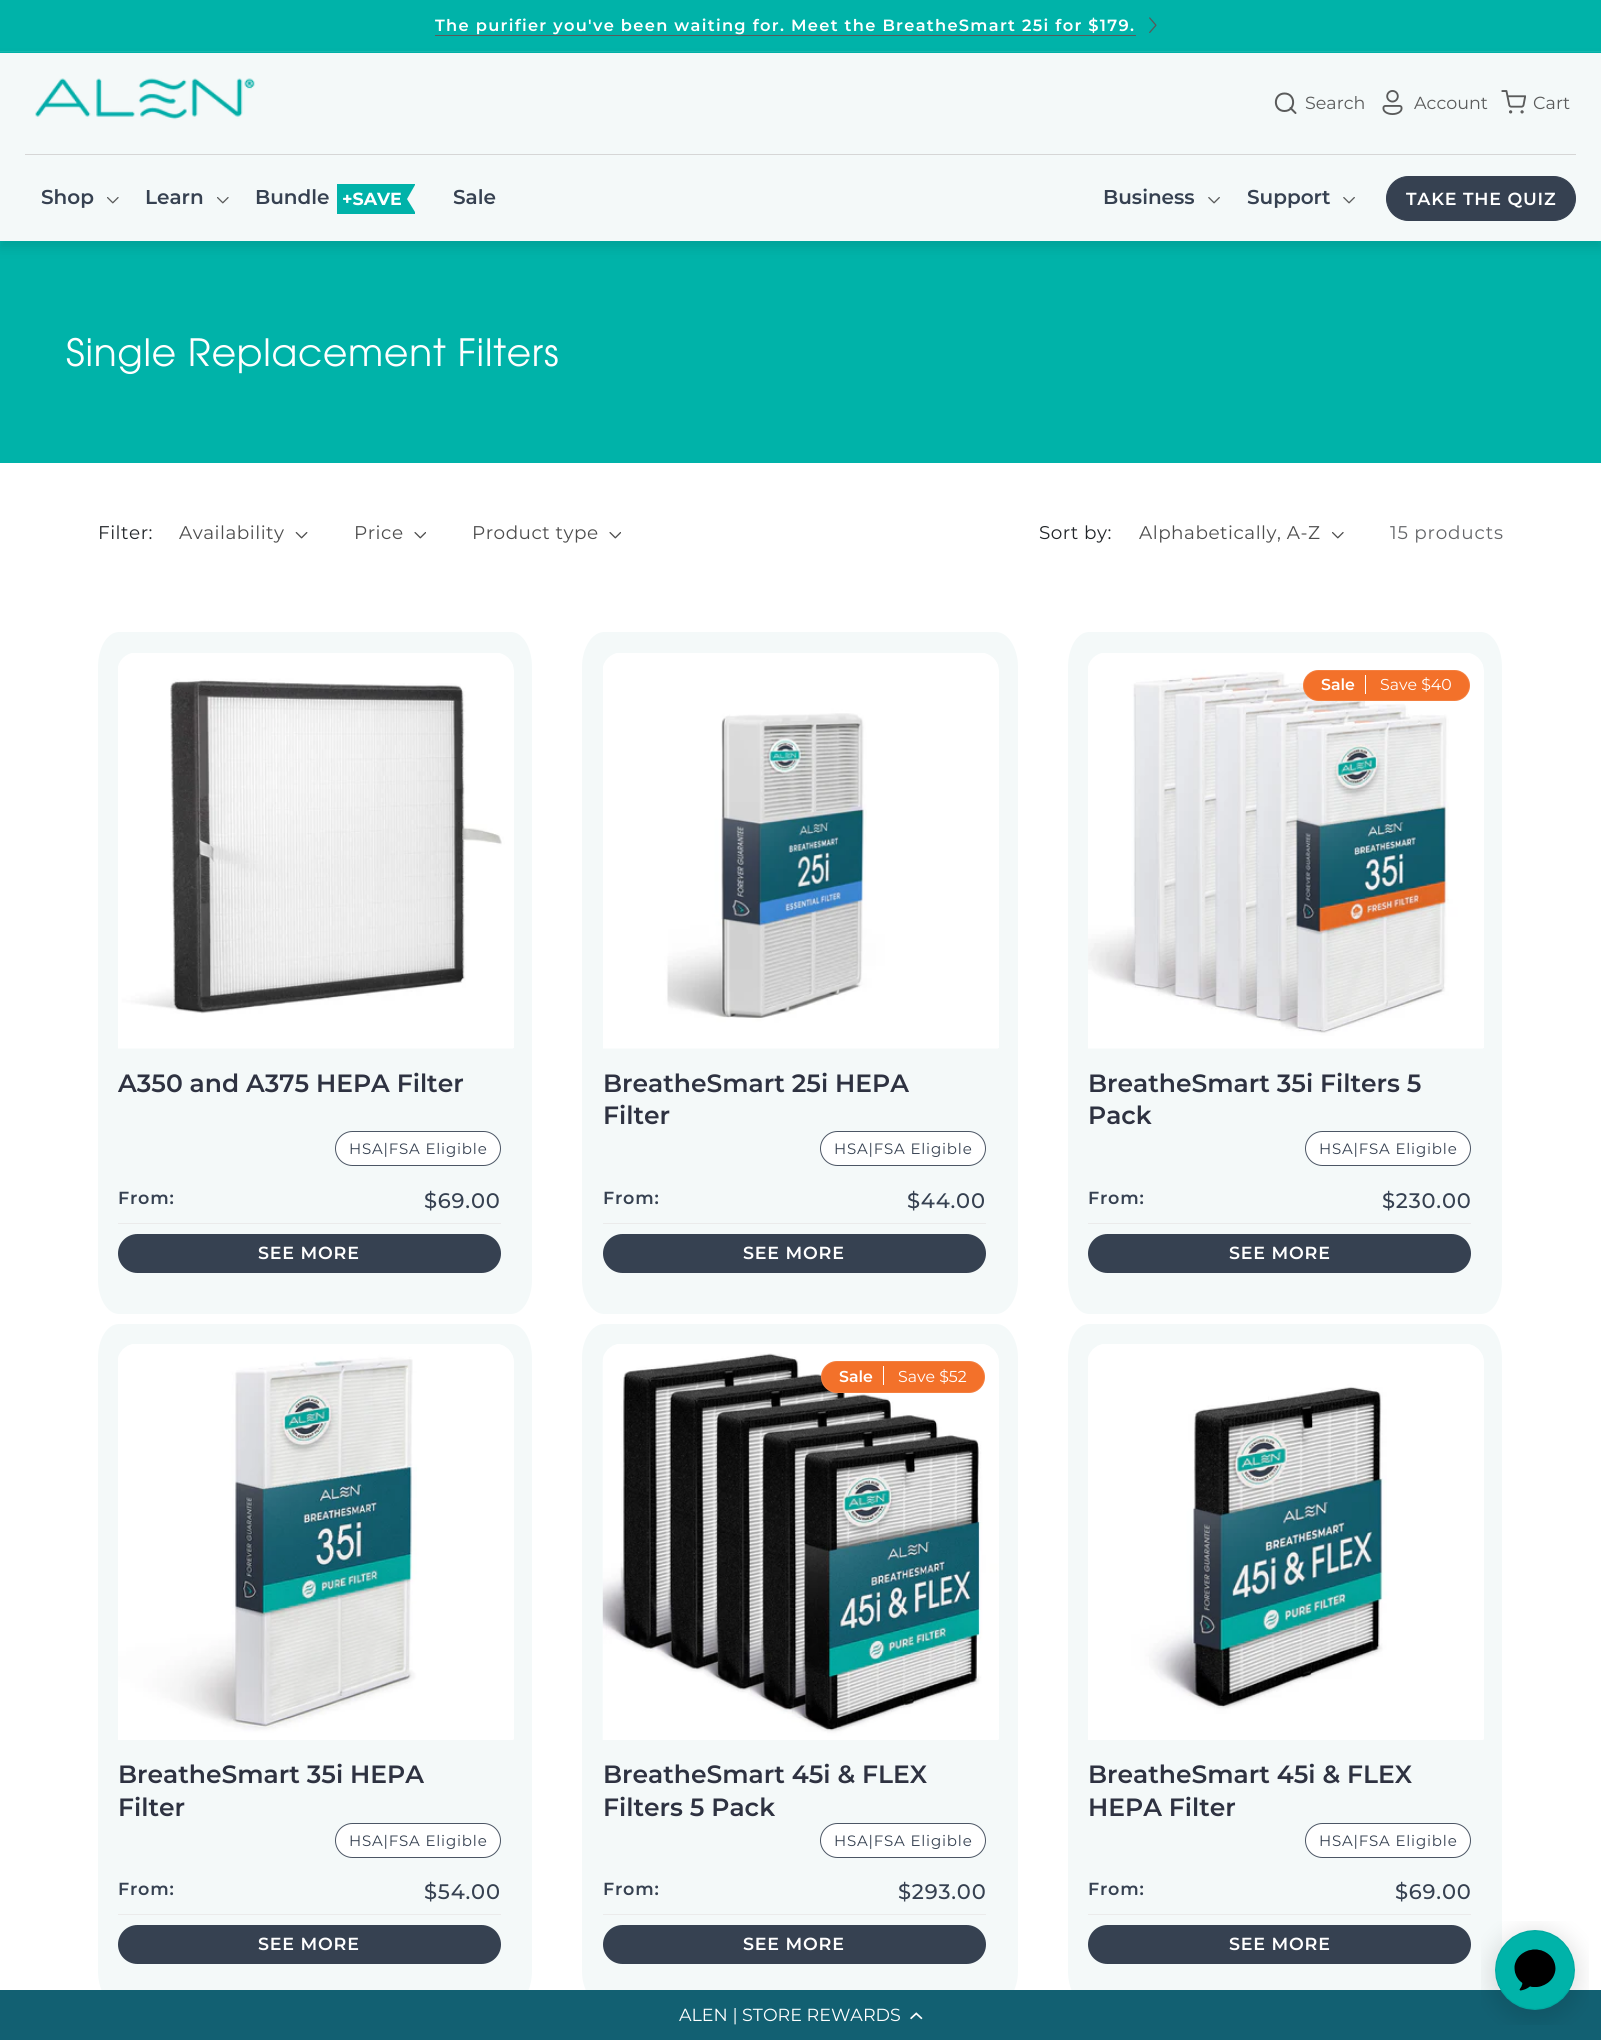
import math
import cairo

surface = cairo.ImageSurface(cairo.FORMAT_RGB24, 1601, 2040)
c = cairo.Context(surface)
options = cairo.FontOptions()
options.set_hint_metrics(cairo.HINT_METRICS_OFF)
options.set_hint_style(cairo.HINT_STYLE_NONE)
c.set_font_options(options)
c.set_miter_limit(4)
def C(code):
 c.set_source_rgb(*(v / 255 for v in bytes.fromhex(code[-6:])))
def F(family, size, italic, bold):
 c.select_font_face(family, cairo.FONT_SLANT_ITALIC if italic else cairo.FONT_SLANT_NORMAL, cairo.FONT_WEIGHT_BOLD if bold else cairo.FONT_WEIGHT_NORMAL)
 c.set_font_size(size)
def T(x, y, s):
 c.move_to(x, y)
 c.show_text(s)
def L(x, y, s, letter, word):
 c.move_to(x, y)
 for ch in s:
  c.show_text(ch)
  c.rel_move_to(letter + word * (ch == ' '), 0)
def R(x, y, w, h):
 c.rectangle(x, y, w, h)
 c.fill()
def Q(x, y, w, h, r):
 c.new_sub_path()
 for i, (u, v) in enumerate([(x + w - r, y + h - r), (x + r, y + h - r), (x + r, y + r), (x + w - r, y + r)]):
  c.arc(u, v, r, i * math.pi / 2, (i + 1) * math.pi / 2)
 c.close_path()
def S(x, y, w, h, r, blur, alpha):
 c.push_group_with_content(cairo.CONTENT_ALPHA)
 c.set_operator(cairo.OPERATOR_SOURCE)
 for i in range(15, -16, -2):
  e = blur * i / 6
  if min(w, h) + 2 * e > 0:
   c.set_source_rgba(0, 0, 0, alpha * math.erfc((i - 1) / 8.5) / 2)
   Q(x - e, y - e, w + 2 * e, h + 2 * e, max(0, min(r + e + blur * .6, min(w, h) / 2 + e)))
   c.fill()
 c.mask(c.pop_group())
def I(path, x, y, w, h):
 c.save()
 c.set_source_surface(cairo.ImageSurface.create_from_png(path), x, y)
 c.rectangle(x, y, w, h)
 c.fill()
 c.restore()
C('ffffff')
c.paint()
C('00b3a9')
R(0,0,1601,53)
C('14b9b0')
R(0,51,1601,1)
F('Montserrat SemiBold',16.25,0,0)
C('ffffff')
L(435,31,'The purifier you\'ve been waiting for. Meet the BreatheSmart 25i for $179.',1.3,0)
C('5a5b5b')
R(435,35,701,1)
I('1.png',1149,17,8,16)
C('00b3a9')
R(0,241,1601,222)
C('000000')
S(0,59,1601,189,0,6,.1)
C('f4f9f9')
R(0,53,1601,188)
C('d6d6d6')
R(25,154,1551,1)
I('2.png',35,78,220,42)
c.new_path()
c.move_to(1284.5,111)
c.curve_to(1296,111,1296,93.5,1284.5,93.5)
c.curve_to(1273,93.5,1273,111,1284.5,111)
c.close_path()
c.move_to(1295.5,113)
c.line_to(1290.5,108)
C('5a5b5b')
c.set_line_cap(cairo.LINE_CAP_ROUND)
c.set_line_join(cairo.LINE_JOIN_ROUND)
c.stroke()
F('Montserrat Thin',17.5,0,0)
T(1305,109,'Search')
I('3.png',1382,90,21,25)
T(1414,109,'Account')
I('4.png',1501,90,25,24)
T(1533,109,'Cart')
F('Montserrat SemiBold',20,0,0)
C('364151')
T(41,204,'Shop')
I('5.png',107,197,12,7)
T(145,204,'Learn')
I('5.png',217,197,12,7)
T(255,204,'Bundle')
C('00b2a9')
c.new_path()
c.move_to(415,185)
c.line_to(415,184)
c.line_to(337,184)
c.line_to(337,214)
c.line_to(415,214)
c.line_to(415,212)
c.line_to(407,199)
c.close_path()
c.fill()
F('Montserrat',17.5,0,1)
C('ffffff')
T(342,205,'+SAVE')
F('Montserrat SemiBold',20,0,0)
C('364151')
T(453,204,'Sale')
T(1103,204,'Business')
I('6.png',1208,197,12,7)
T(1247,204,'Support')
I('6.png',1343,197,12,7)
Q(1386.5,176.5,189,44,22)
c.fill_preserve()
c.set_line_width(1)
c.set_line_cap(cairo.LINE_CAP_BUTT)
c.set_line_join(cairo.LINE_JOIN_MITER)
c.stroke()
F('Montserrat SemiBold',17.5,0,0)
C('ffffff')
L(1406,205,'TAKE THE QUIZ',.8,0)
F('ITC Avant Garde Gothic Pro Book',37.5,0,0)
L(66,366,'Single Replacement Filters',.8,0)
F('Montserrat Thin',18.4,0,0)
C('212529')
L(98,539,'Filter:',.5,0)
C('4d4d4d')
L(179,539,'Availability',.5,0)
I('7.png',295,532,13,7)
L(354,539,'Price',.5,0)
I('8.png',414,532,12,7)
L(472,539,'Product type',.5,0)
I('8.png',609,532,12,7)
C('212529')
L(1039,539,'Sort by:',.5,0)
C('4d4d4d')
L(1139,539,'Alphabetically, A-Z',.5,0)
I('9.png',1332,532,12,7)
C('646669')
L(1390,539,'15 products',.8,0)
C('f4f9f9')
c.new_path()
c.move_to(119,632)
c.line_to(511,632)
c.curve_to(523,632,532,648,532,667)
c.line_to(532,1280)
c.curve_to(532,1298,523,1314,511,1314)
c.line_to(119,1314)
c.curve_to(107,1314,98,1298,98,1280)
c.line_to(98,667)
c.curve_to(98,648,107,632,119,632)
c.close_path()
c.fill()
C('ffffff')
c.new_path()
c.move_to(137,653)
c.line_to(495,653)
c.curve_to(505.5,653,514,661.5,514,672)
c.line_to(514,1048)
c.line_to(118,1048)
c.line_to(118,672)
c.curve_to(118,661.5,126.5,653,137,653)
c.close_path()
c.fill()
I('10.png',118,653,395,396)
F('Montserrat SemiBold',25,0,0)
C('2e3241')
T(118,1092,'A350 and A375 HEPA Filter')
C('ffffff')
Q(335.5,1131.5,165,34,17)
c.fill_preserve()
C('4c5665')
c.stroke()
F('Montserrat Thin',15,0,0)
C('364151')
L(349,1154,'HSA|FSA Eligible',.8,0)
C('ebebeb')
R(118,1223,383,1)
F('Montserrat SemiBold',17.5,0,0)
C('364151')
L(118,1204,'From:',.8,0)
F('Montserrat Medium',21,0,0)
L(424,1208,'$69.00',.8,0)
Q(118,1234,383,39,19.5)
c.fill()
F('Montserrat SemiBold',17.5,0,0)
C('ffffff')
L(258,1259,'SEE MORE',.8,0)
C('f4f9f9')
c.new_path()
c.move_to(604,632)
c.line_to(996,632)
c.curve_to(1008,632,1018,648,1018,667)
c.line_to(1018,1280)
c.curve_to(1018,1298,1008,1314,996,1314)
c.line_to(604,1314)
c.curve_to(592,1314,582,1298,582,1280)
c.line_to(582,667)
c.curve_to(582,648,592,632,604,632)
c.close_path()
c.fill()
C('ffffff')
c.new_path()
c.move_to(622,653)
c.line_to(980,653)
c.curve_to(990.5,653,999,661.5,999,672)
c.line_to(999,1048)
c.line_to(603,1048)
c.line_to(603,672)
c.curve_to(603,661.5,611.5,653,622,653)
c.close_path()
c.fill()
I('11.png',603,653,395,396)
F('Montserrat SemiBold',25,0,0)
C('2e3241')
T(603,1092,'BreatheSmart 25i HEPA')
T(603,1124,'Filter')
C('ffffff')
Q(820.5,1131.5,165,34,17)
c.fill_preserve()
C('4c5665')
c.stroke()
F('Montserrat Thin',15,0,0)
C('364151')
L(834,1154,'HSA|FSA Eligible',.8,0)
C('ebebeb')
R(603,1223,383,1)
F('Montserrat SemiBold',17.5,0,0)
C('364151')
L(603,1204,'From:',.8,0)
F('Montserrat Medium',21,0,0)
L(907,1208,'$44.00',.8,0)
Q(603,1234,383,39,19.5)
c.fill()
F('Montserrat SemiBold',17.5,0,0)
C('ffffff')
L(743,1259,'SEE MORE',.8,0)
C('f4f9f9')
c.new_path()
c.move_to(1089,632)
c.line_to(1481,632)
c.curve_to(1493,632,1502,648,1502,667)
c.line_to(1502,1280)
c.curve_to(1502,1298,1493,1314,1481,1314)
c.line_to(1089,1314)
c.curve_to(1077,1314,1068,1298,1068,1280)
c.line_to(1068,667)
c.curve_to(1068,648,1077,632,1089,632)
c.close_path()
c.fill()
C('ffffff')
c.new_path()
c.move_to(1107,653)
c.line_to(1465,653)
c.curve_to(1475.5,653,1484,661.5,1484,672)
c.line_to(1484,1048)
c.line_to(1088,1048)
c.line_to(1088,672)
c.curve_to(1088,661.5,1096.5,653,1107,653)
c.close_path()
c.fill()
I('12.png',1088,653,395,396)
C('f3712a')
Q(1303,670,167,31,15.5)
c.fill()
Q(1303.5,670.5,166,30,15)
c.set_source_rgba(1,1,1,0.1)
c.stroke()
F('Montserrat SemiBold',15.75,0,0)
C('ffffff')
T(1321,690,'Sale')
F('Montserrat Thin',15.75,0,0)
T(1380,690,'Save $40')
R(1365,675,1,19)
F('Montserrat SemiBold',25,0,0)
C('2e3241')
T(1088,1092,'BreatheSmart 35i Filters 5')
T(1088,1124,'Pack')
C('ffffff')
Q(1305.5,1131.5,165,34,17)
c.fill_preserve()
C('4c5665')
c.stroke()
F('Montserrat Thin',15,0,0)
C('364151')
L(1319,1154,'HSA|FSA Eligible',.8,0)
C('ebebeb')
R(1088,1223,383,1)
F('Montserrat SemiBold',17.5,0,0)
C('364151')
L(1088,1204,'From:',.8,0)
F('Montserrat Medium',21,0,0)
L(1382,1208,'$230.00',.8,0)
Q(1088,1234,383,39,19.5)
c.fill()
F('Montserrat SemiBold',17.5,0,0)
C('ffffff')
L(1229,1259,'SEE MORE',.8,0)
C('f4f9f9')
c.new_path()
c.move_to(119,1324)
c.line_to(511,1324)
c.curve_to(523,1324,532,1339,532,1358)
c.line_to(532,1971)
c.curve_to(532,1990,523,2005,511,2005)
c.line_to(119,2005)
c.curve_to(107,2005,98,1990,98,1971)
c.line_to(98,1358)
c.curve_to(98,1339,107,1324,119,1324)
c.close_path()
c.fill()
C('ffffff')
c.new_path()
c.move_to(137,1344)
c.line_to(495,1344)
c.curve_to(505.5,1344,514,1352.5,514,1363)
c.line_to(514,1739)
c.line_to(118,1739)
c.line_to(118,1363)
c.curve_to(118,1352.5,126.5,1344,137,1344)
c.close_path()
c.fill()
I('13.png',118,1344,396,396)
F('Montserrat SemiBold',25,0,0)
C('2e3241')
T(118,1783,'BreatheSmart 35i HEPA')
T(118,1816,'Filter')
C('ffffff')
Q(335.5,1823.5,165,34,17)
c.fill_preserve()
C('4c5665')
c.stroke()
F('Montserrat Thin',15,0,0)
C('364151')
L(349,1846,'HSA|FSA Eligible',.8,0)
C('ebebeb')
R(118,1914,383,1)
F('Montserrat SemiBold',17.5,0,0)
C('364151')
L(118,1895,'From:',.8,0)
F('Montserrat Medium',21,0,0)
L(424,1899,'$54.00',.8,0)
Q(118,1925,383,39,19.5)
c.fill()
F('Montserrat SemiBold',17.5,0,0)
C('ffffff')
L(258,1950,'SEE MORE',.8,0)
C('f4f9f9')
c.new_path()
c.move_to(604,1324)
c.line_to(996,1324)
c.curve_to(1008,1324,1018,1339,1018,1358)
c.line_to(1018,1971)
c.curve_to(1018,1990,1008,2005,996,2005)
c.line_to(604,2005)
c.curve_to(592,2005,582,1990,582,1971)
c.line_to(582,1358)
c.curve_to(582,1339,592,1324,604,1324)
c.close_path()
c.fill()
C('ffffff')
c.new_path()
c.move_to(622,1344)
c.line_to(980,1344)
c.curve_to(990.5,1344,999,1352.5,999,1363)
c.line_to(999,1739)
c.line_to(603,1739)
c.line_to(603,1363)
c.curve_to(603,1352.5,611.5,1344,622,1344)
c.close_path()
c.fill()
I('14.png',602,1344,397,396)
C('f3712a')
Q(821,1361,164,32,16)
c.fill()
Q(821.5,1361.5,163,31,15.5)
c.set_source_rgba(1,1,1,0.1)
c.stroke()
F('Montserrat SemiBold',15.75,0,0)
C('ffffff')
T(839,1382,'Sale')
F('Montserrat Thin',15.75,0,0)
T(898,1382,'Save $52')
R(883,1366,1,19)
F('Montserrat SemiBold',25,0,0)
C('2e3241')
T(603,1783,'BreatheSmart 45i & FLEX')
T(603,1816,'Filters 5 Pack')
C('ffffff')
Q(820.5,1823.5,165,34,17)
c.fill_preserve()
C('4c5665')
c.stroke()
F('Montserrat Thin',15,0,0)
C('364151')
L(834,1846,'HSA|FSA Eligible',.8,0)
C('ebebeb')
R(603,1914,383,1)
F('Montserrat SemiBold',17.5,0,0)
C('364151')
L(603,1895,'From:',.8,0)
F('Montserrat Medium',21,0,0)
L(898,1899,'$293.00',.8,0)
Q(603,1925,383,39,19.5)
c.fill()
F('Montserrat SemiBold',17.5,0,0)
C('ffffff')
L(743,1950,'SEE MORE',.8,0)
C('f4f9f9')
c.new_path()
c.move_to(1089,1324)
c.line_to(1481,1324)
c.curve_to(1493,1324,1502,1339,1502,1358)
c.line_to(1502,1971)
c.curve_to(1502,1990,1493,2005,1481,2005)
c.line_to(1089,2005)
c.curve_to(1077,2005,1068,1990,1068,1971)
c.line_to(1068,1358)
c.curve_to(1068,1339,1077,1324,1089,1324)
c.close_path()
c.fill()
C('ffffff')
c.new_path()
c.move_to(1107,1344)
c.line_to(1465,1344)
c.curve_to(1475.5,1344,1484,1352.5,1484,1363)
c.line_to(1484,1739)
c.line_to(1088,1739)
c.line_to(1088,1363)
c.curve_to(1088,1352.5,1096.5,1344,1107,1344)
c.close_path()
c.fill()
I('15.png',1088,1344,396,396)
F('Montserrat SemiBold',25,0,0)
C('2e3241')
T(1088,1783,'BreatheSmart 45i & FLEX')
T(1088,1816,'HEPA Filter')
C('ffffff')
Q(1305.5,1823.5,165,34,17)
c.fill_preserve()
C('4c5665')
c.stroke()
F('Montserrat Thin',15,0,0)
C('364151')
L(1319,1846,'HSA|FSA Eligible',.8,0)
C('ebebeb')
R(1088,1914,383,1)
F('Montserrat SemiBold',17.5,0,0)
C('364151')
L(1088,1895,'From:',.8,0)
F('Montserrat Medium',21,0,0)
L(1395,1899,'$69.00',.8,0)
Q(1088,1925,383,39,19.5)
c.fill()
F('Montserrat SemiBold',17.5,0,0)
C('ffffff')
L(1229,1950,'SEE MORE',.8,0)
C('126072')
R(0,1990,1601,50)
F('Montserrat Thin',17.5,0,0)
C('ffffff')
T(679,2021,'ALEN | STORE REWARDS')
I('16.png',910,2012,13,8)
I('17.png',1481,1921,108,104)
surface.write_to_png('o.png')
